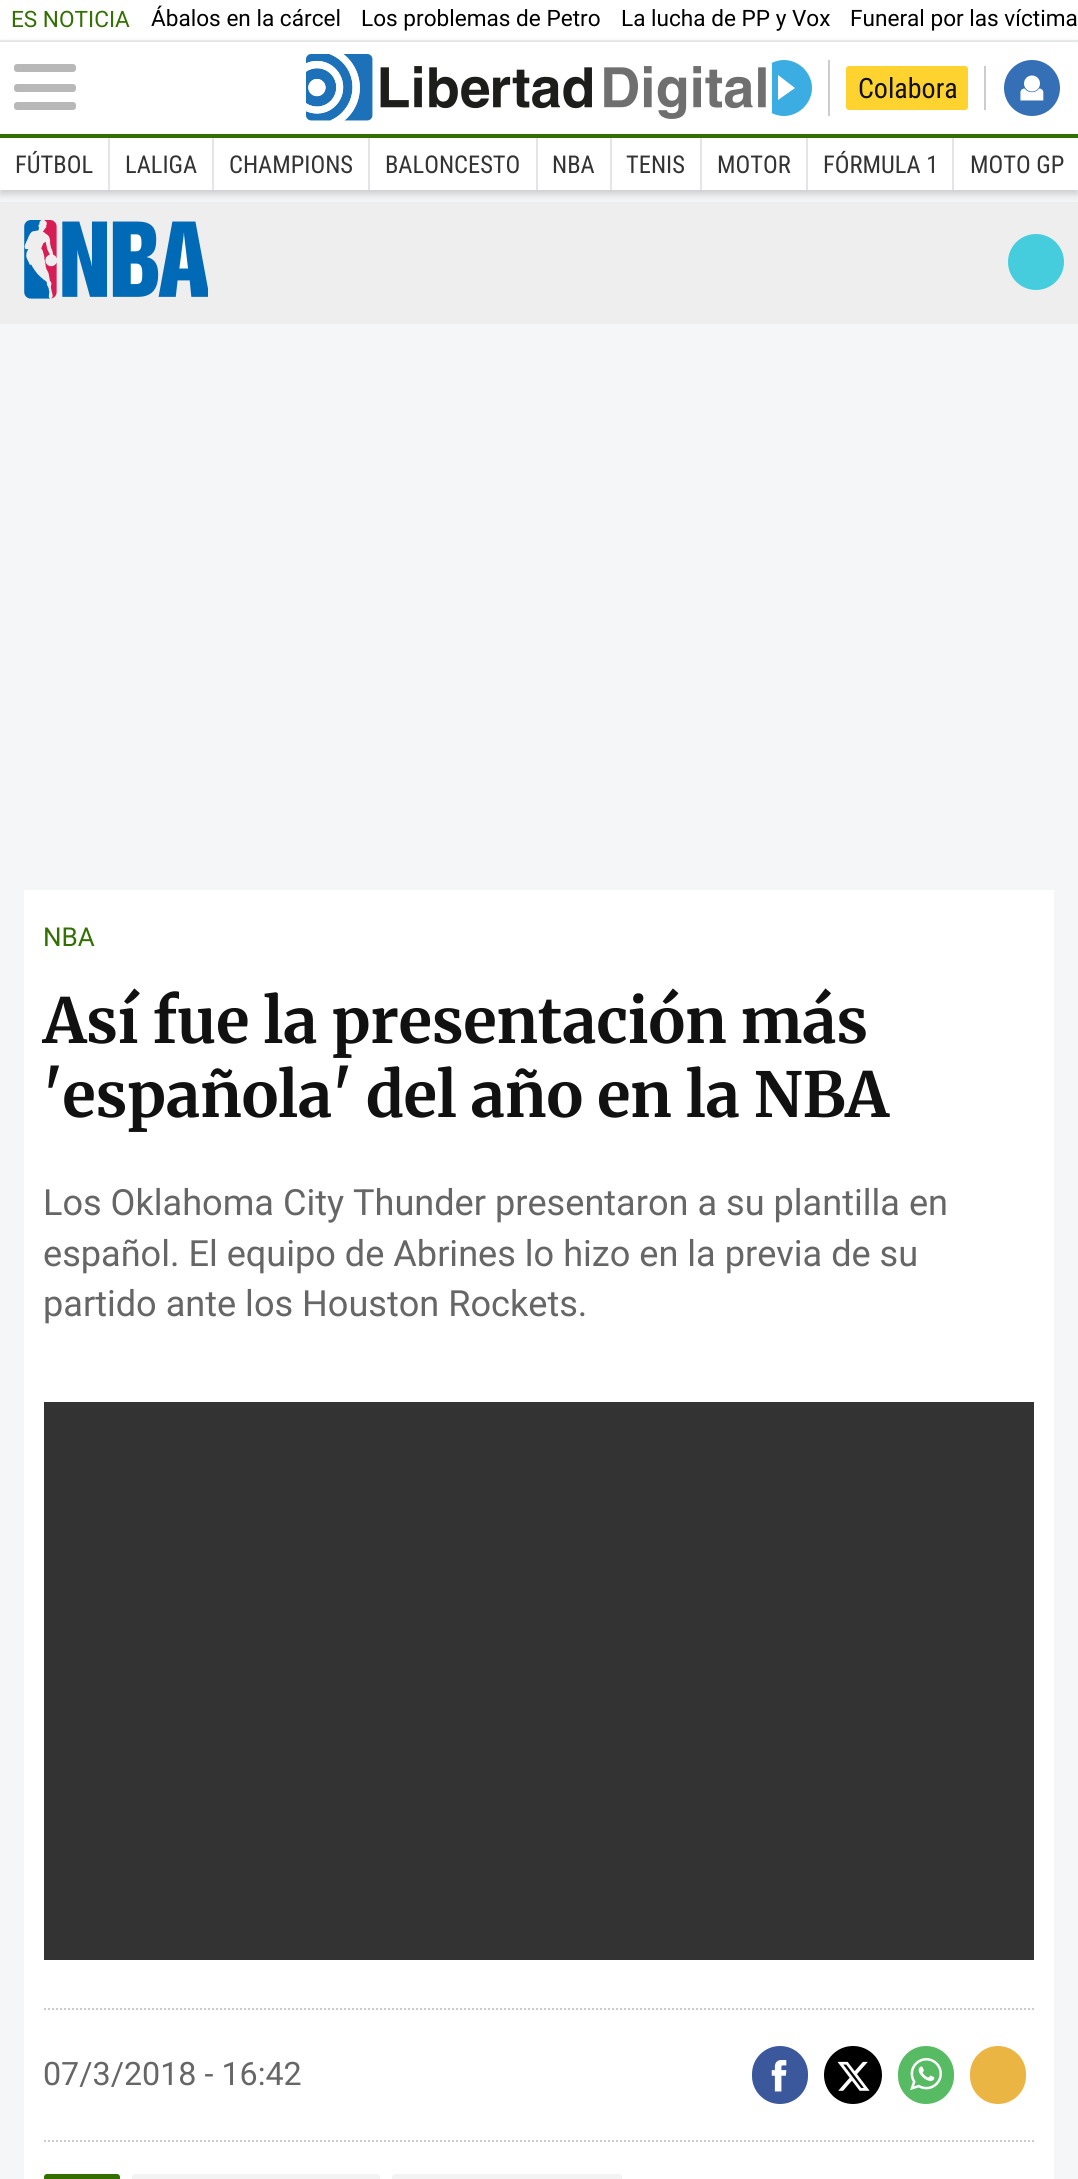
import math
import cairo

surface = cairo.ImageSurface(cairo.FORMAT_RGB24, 1078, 2179)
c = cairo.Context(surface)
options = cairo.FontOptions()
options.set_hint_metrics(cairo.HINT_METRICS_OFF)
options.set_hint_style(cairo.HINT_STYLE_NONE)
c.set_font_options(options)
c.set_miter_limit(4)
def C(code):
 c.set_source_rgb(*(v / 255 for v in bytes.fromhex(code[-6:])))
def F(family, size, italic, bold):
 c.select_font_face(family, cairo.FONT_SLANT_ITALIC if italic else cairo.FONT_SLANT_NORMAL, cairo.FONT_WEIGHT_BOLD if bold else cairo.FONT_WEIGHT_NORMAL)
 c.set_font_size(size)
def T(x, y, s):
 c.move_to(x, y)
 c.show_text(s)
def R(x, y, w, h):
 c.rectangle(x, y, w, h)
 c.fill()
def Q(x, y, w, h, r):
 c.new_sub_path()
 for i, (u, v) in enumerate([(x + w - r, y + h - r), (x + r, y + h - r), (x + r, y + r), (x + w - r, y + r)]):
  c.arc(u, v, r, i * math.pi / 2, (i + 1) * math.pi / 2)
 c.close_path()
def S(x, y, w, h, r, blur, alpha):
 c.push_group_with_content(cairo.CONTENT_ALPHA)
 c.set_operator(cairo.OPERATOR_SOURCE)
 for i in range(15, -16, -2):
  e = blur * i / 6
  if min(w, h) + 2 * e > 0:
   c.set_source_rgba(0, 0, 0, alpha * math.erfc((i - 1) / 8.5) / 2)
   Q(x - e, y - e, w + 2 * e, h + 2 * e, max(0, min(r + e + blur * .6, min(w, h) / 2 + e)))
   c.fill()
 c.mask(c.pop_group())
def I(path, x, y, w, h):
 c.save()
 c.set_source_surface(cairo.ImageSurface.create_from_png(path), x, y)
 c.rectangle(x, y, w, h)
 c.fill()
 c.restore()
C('f5f6f8')
c.paint()
C('ffffff')
R(0,0,1078,40)
C('ecf0f1')
R(0,40,1078,2)
F('Roboto',22.6,0,0)
C('337001')
T(11,27,'ES NOTICIA')
C('000000')
T(151,26,'Ábalos en la cárcel')
T(361,26,'Los problemas de Petro')
T(621,26,'La lucha de PP y Vox')
T(850,26,'Funeral por las víctima')
C('323232')
S(0,46,1078,96,0,4,.44)
C('ffffff')
R(0,42,1078,92)
C('337001')
R(0,134,1078,4)
C('b8b8b8')
Q(14,64,62,8,3)
c.fill()
Q(14,84,62,8,3)
c.fill()
Q(14,102,62,8,3)
c.fill()
I('1.png',306,54,460,67)
C('cccccc')
R(828,60,2,56)
c.save()
c.rectangle(772,60,40,56)
c.clip()
C('3bade3')
c.new_path()
c.move_to(784,60)
c.curve_to(769,60,756,73,756,88)
c.curve_to(756,103,769,116,784,116)
c.curve_to(799,116,812,103,812,88)
c.curve_to(812,73,799,60,784,60)
c.close_path()
c.move_to(778,100)
c.line_to(778,75)
c.line_to(795,88)
c.close_path()
c.fill()
c.restore()
R(984,66,2,44)
C('fed330')
Q(846,66,122,44,3)
c.fill()
F('Roboto Condensed',28,0,0)
C('111111')
T(858,98,'Colabora')
C('3570b6')
c.new_path()
c.arc(1032,88,28,0,2 * math.pi)
c.fill()
I('2.png',1020,75,24,26)
C('eeeeee')
R(0,202,1078,122)
C('323232')
S(0,142,1078,52,0,4,.22)
C('ffffff')
R(0,138,1078,52)
F('Roboto Condensed',24.5,0,0)
C('333333')
T(15,173,'FÚTBOL')
C('e5e5e5')
R(108,138,2,52)
C('333333')
T(125,173,'LALIGA')
C('e5e5e5')
R(212,138,2,52)
C('333333')
T(229,173,'CHAMPIONS')
C('e5e5e5')
R(368,138,2,52)
C('333333')
T(385,173,'BALONCESTO')
C('e5e5e5')
R(536,138,2,52)
C('333333')
T(552,173,'NBA')
C('e5e5e5')
R(610,138,2,52)
C('333333')
T(626,173,'TENIS')
C('e5e5e5')
R(700,138,2,52)
C('333333')
T(717,173,'MOTOR')
C('e5e5e5')
R(806,138,2,52)
C('333333')
T(823,173,'FÓRMULA 1')
C('e5e5e5')
R(952,138,2,52)
C('333333')
T(970,173,'MOTO GP')
I('3.png',24,220,184,79)
C('45cddd')
c.arc(1036,262,28,0,2 * math.pi)
c.fill()
C('ffffff')
R(24,890,1030,1289)
F('Roboto',26,0,0)
C('337001')
T(43,946,'NBA')
F('Merriweather',62,0,1)
C('111111')
T(43,1043,'Así fue la presentación más')
T(43,1117,'\'española\' del año en la NBA')
F('Roboto',36.1,0,0)
C('666666')
T(43,1215,'Los Oklahoma City Thunder presentaron a su plantilla en')
T(43,1266,'español. El equipo de Abrines lo hizo en la previa de su')
T(43,1316,'partido ante los Houston Rockets.')
C('333333')
R(44,1402,990,558)
c.new_path()
c.move_to(44,2009)
c.line_to(1034,2009)
C('cccccc')
c.set_dash([2,2])
c.stroke()
c.new_path()
c.move_to(44,2141)
c.line_to(1034,2141)
c.stroke()
F('Roboto',32.25,0,0)
C('666666')
T(43,2085,'07/3/2018 - 16:42')
C('3a589b')
Q(752,2046,56,58,28)
c.fill()
I('4.png',771,2060,16,32)
C('000000')
c.arc(853,2075,29,0,2 * math.pi)
c.fill()
I('5.png',837,2061,33,30)
C('57bb63')
Q(898,2046,56,58,28)
c.fill()
I('6.png',910,2058,32,32)
C('eab543')
Q(970,2046,56,58,28)
c.fill()
C('337001')
Q(44,2174,76,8,3)
c.fill()
C('f3f3f3')
Q(132,2174,248,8,3)
c.fill()
Q(392,2174,230,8,3)
c.fill()
surface.write_to_png('o.png')
